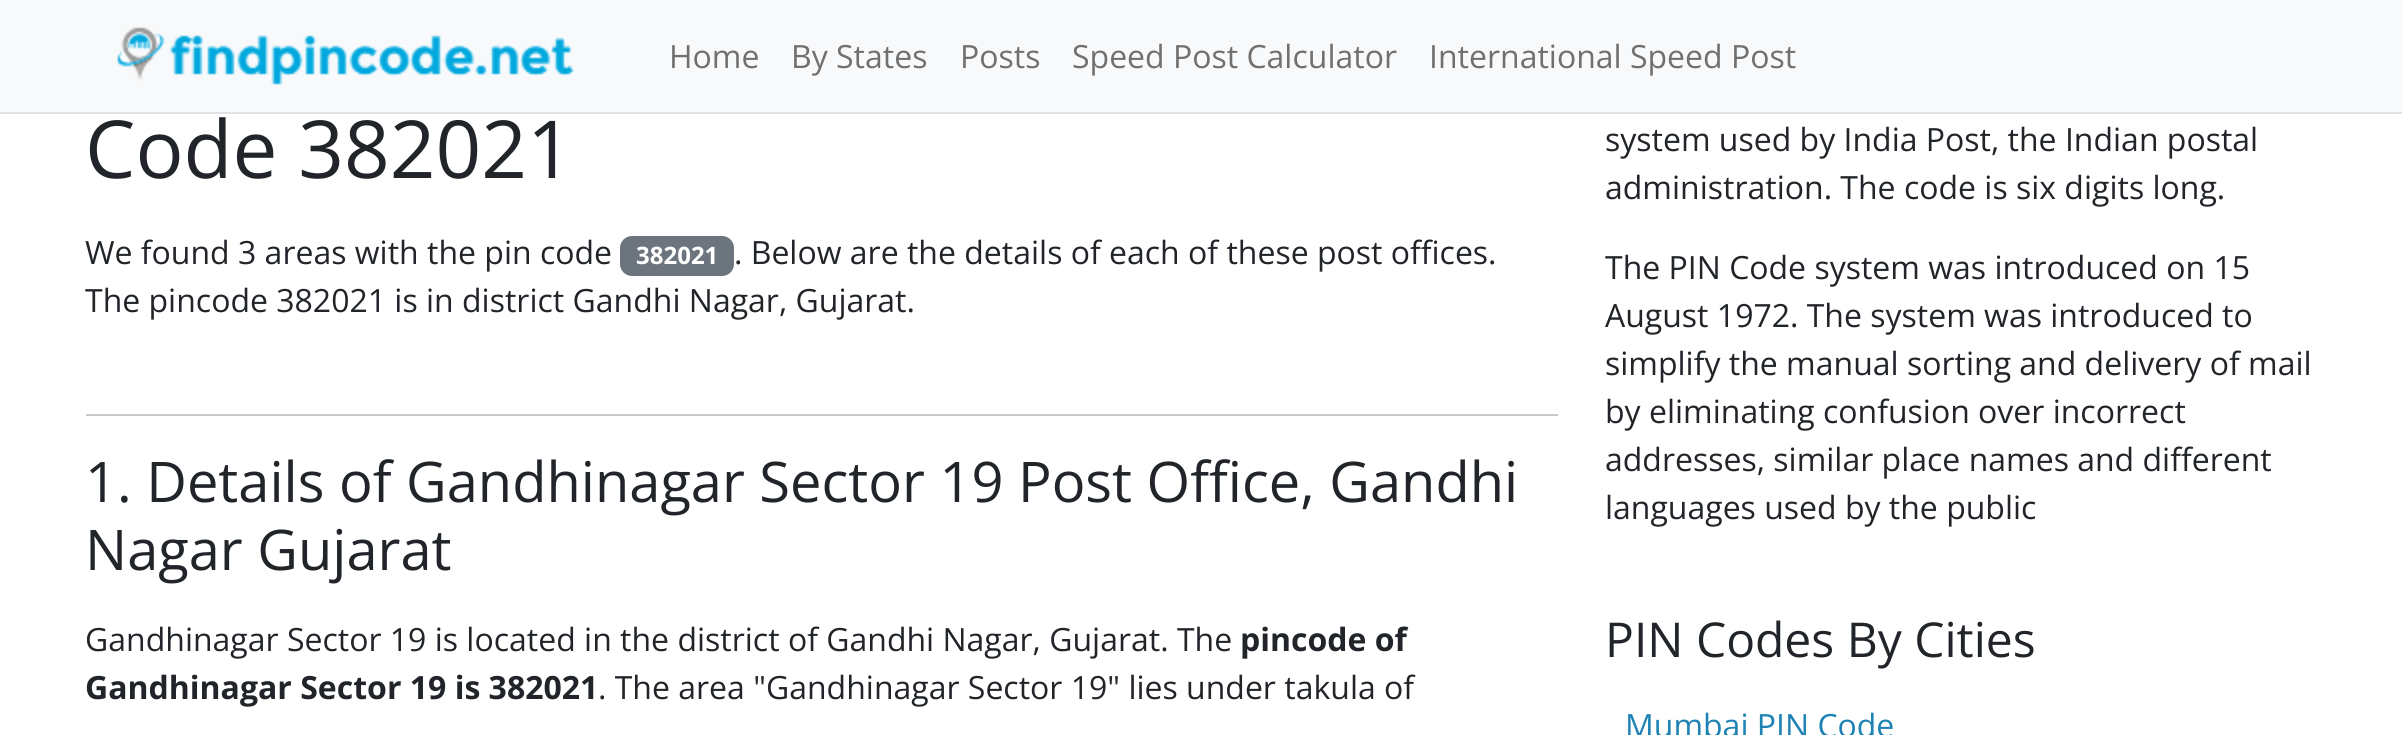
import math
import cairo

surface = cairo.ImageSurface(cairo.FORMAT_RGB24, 2402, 735)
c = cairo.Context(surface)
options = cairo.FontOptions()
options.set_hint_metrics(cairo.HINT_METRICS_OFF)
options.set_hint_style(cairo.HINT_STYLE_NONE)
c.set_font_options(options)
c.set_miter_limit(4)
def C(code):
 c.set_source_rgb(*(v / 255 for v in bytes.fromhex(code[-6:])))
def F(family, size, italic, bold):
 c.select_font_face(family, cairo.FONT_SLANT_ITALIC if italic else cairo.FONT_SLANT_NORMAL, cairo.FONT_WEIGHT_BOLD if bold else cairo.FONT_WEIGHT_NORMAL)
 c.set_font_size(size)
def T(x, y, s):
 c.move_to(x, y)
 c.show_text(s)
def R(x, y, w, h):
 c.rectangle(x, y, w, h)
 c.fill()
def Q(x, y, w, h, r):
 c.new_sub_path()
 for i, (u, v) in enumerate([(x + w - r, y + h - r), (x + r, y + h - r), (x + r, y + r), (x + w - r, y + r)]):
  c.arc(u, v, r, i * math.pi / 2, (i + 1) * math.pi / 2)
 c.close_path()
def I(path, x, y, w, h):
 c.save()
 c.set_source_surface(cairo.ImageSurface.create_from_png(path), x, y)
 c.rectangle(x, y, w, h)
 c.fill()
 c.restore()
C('ffffff')
c.paint()
C('f8f9fa')
R(0,0,2402,112)
C('dee2e6')
R(0,112,2402,2)
I('1.png',117,27,457,58)
F('Open Sans',32,0,0)
C('707071')
T(669,68,'Home')
T(791,68,'By States')
T(960,68,'Posts')
T(1072,68,'Speed Post Calculator')
T(1429,68,'International Speed Post')
F('Open Sans',80,0,0)
C('212529')
T(85,178,'Code 382021')
F('Open Sans',32,0,0)
T(85,264,'We found 3 areas with the pin code')
C('6c757d')
Q(620,236,114,40,12)
c.fill()
F('Open Sans',24,0,1)
C('ffffff')
T(636,264,'382021')
F('Open Sans',32,0,0)
C('212529')
T(734,264,'. Below are the details of each of these post offices.')
T(85,312,'The pincode 382021 is in district Gandhi Nagar, Gujarat.')
C('c8c9ca')
R(86,414,1472,2)
F('Open Sans',56,0,0)
C('212529')
T(85,502,'1. Details of Gandhinagar Sector 19 Post Office, Gandhi')
T(85,570,'Nagar Gujarat')
F('Open Sans',32,0,0)
T(85,651,'Gandhinagar Sector 19 is located in the district of Gandhi Nagar, Gujarat. The')
F('Open Sans',32,0,1)
T(1240,651,'pincode of')
T(85,699,'Gandhinagar Sector 19 is 382021')
F('Open Sans',32,0,0)
T(598,699,'. The area "Gandhinagar Sector 19" lies under takula of')
T(1605,151,'system used by India Post, the Indian postal')
T(1605,199,'administration. The code is six digits long.')
T(1605,279,'The PIN Code system was introduced on 15')
T(1605,327,'August 1972. The system was introduced to')
T(1605,375,'simplify the manual sorting and delivery of mail')
T(1605,423,'by eliminating confusion over incorrect')
T(1605,471,'addresses, similar place names and different')
T(1605,519,'languages used by the public')
F('Open Sans',48,0,0)
T(1605,657,'PIN Codes By Cities')
F('Open Sans',32,0,0)
C('1e82b4')
T(1625,737,'Mumbai PIN Code')
surface.write_to_png('o.png')
